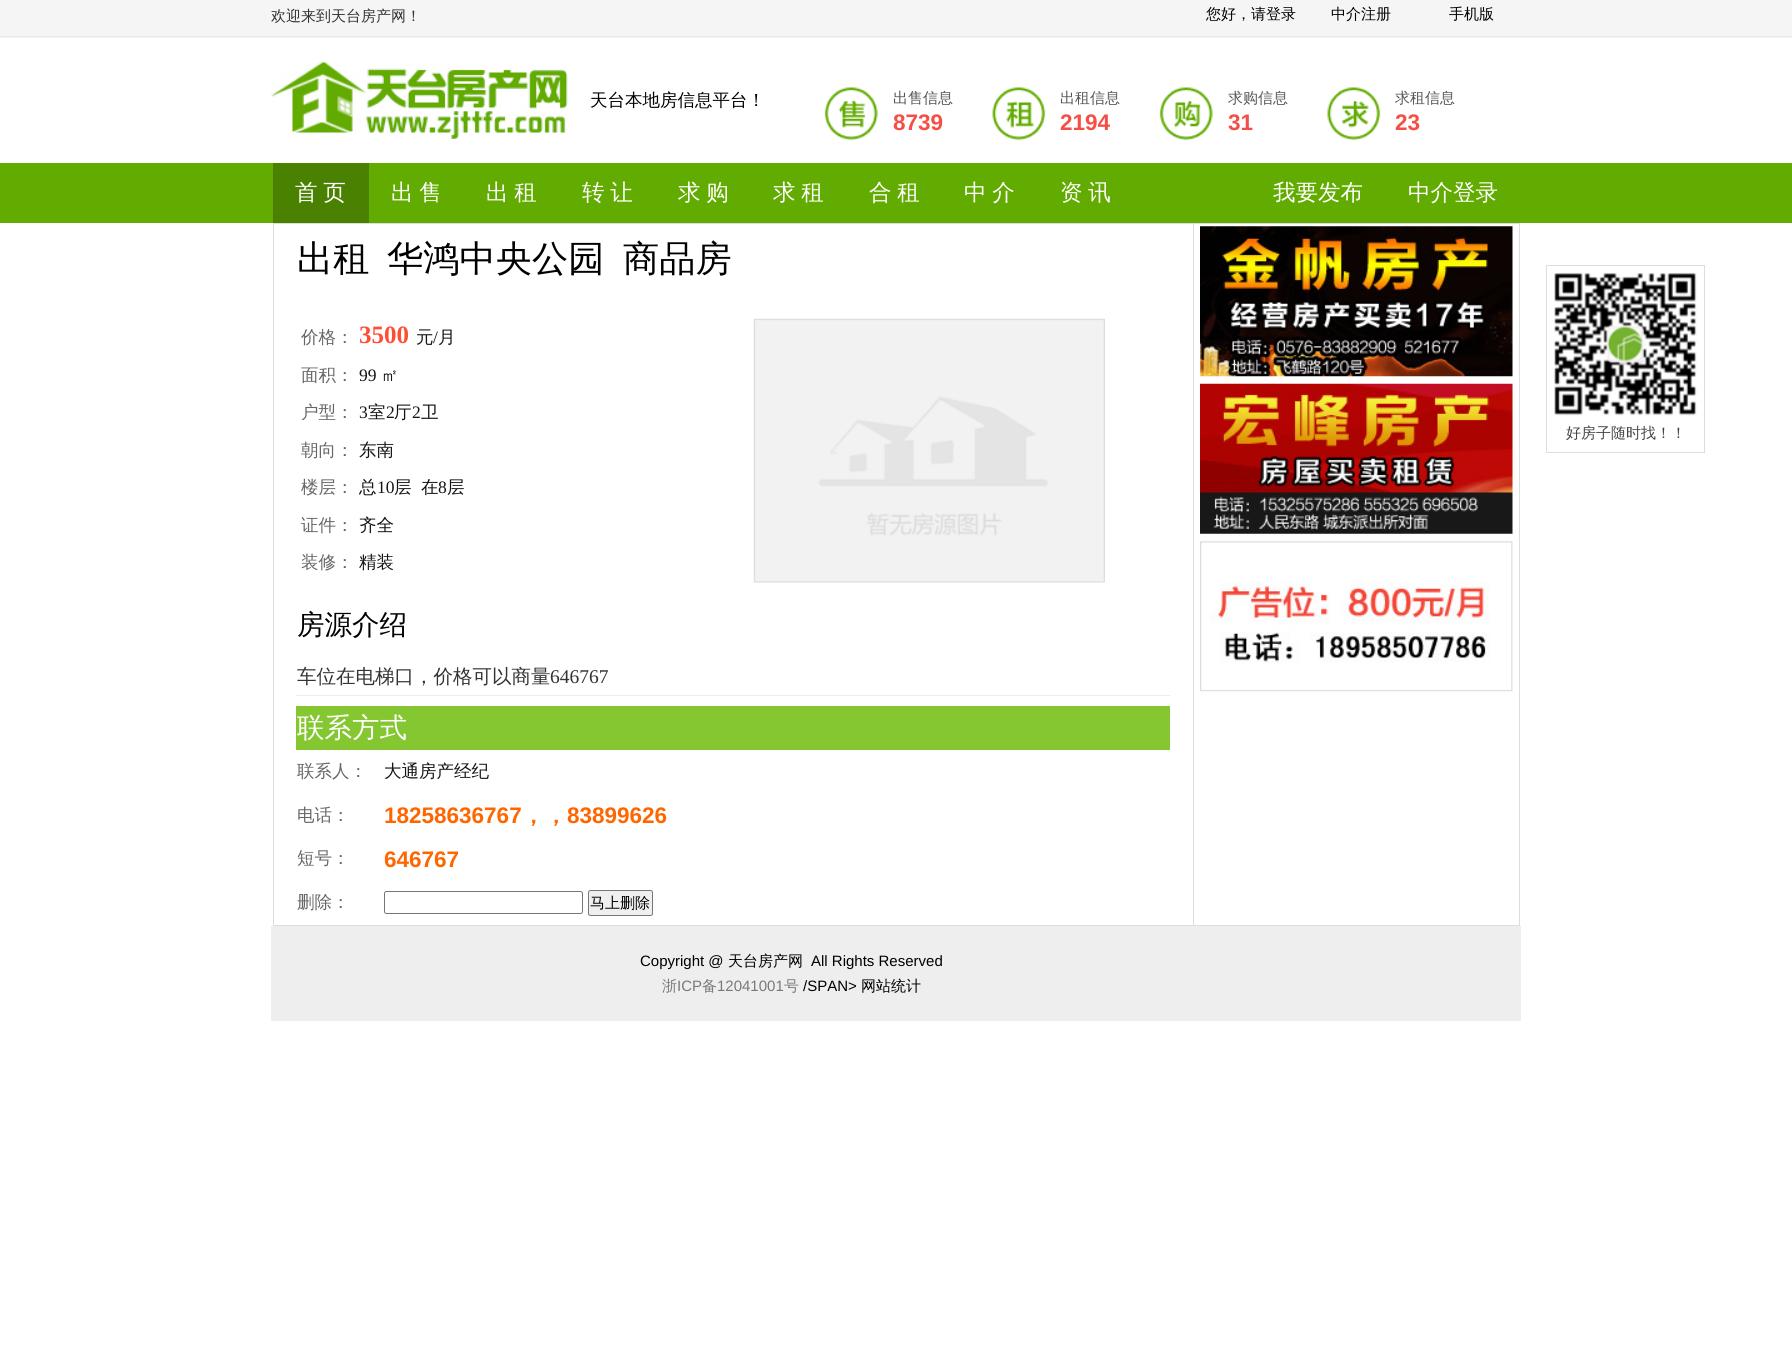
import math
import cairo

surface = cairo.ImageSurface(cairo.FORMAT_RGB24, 1792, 1347)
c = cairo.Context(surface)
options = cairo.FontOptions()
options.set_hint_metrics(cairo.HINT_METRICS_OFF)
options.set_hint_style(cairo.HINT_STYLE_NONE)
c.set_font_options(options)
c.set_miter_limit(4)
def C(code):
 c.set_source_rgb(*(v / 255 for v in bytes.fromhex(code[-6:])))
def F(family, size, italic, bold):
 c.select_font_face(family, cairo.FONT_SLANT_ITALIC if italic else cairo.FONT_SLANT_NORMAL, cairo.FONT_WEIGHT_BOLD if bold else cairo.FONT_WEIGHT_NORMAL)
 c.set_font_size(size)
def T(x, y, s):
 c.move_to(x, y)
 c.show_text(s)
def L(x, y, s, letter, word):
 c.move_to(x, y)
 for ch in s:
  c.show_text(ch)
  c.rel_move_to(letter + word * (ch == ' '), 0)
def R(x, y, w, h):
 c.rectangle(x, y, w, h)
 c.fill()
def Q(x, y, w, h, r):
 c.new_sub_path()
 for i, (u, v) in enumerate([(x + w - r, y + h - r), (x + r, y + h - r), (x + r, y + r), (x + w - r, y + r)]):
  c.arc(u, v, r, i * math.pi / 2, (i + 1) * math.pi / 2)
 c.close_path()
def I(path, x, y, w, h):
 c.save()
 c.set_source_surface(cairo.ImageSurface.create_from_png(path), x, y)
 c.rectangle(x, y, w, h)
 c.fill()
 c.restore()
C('ffffff')
c.paint()
C('f5f5f5')
R(0,0,1792,38)
C('eaeaea')
R(0,36,1792,1)
F('WenQuanYi Zen Hei Medium',15,0,0)
C('333333')
T(271,21,'欢迎来到天台房产网！')
C('000000')
T(1206,19,'您好，请登录')
T(1331,19,'中介注册')
T(1449,19,'手机版')
I('1.png',271,62,297,79)
F('WenQuanYi Zen Hei Medium',17.5,0,0)
T(590,106,'天台本地房信息平台！')
I('2.png',824,87,54,54)
F('WenQuanYi Zen Hei Medium',15,0,0)
C('555555')
T(893,103,'出售信息')
F('Liberation Sans',22.5,0,1)
C('f64e45')
T(893,130,'8739')
I('3.png',992,87,54,54)
F('WenQuanYi Zen Hei Medium',15,0,0)
C('555555')
T(1060,103,'出租信息')
F('Liberation Sans',22.5,0,1)
C('f64e45')
T(1060,130,'2194')
I('4.png',1159,87,54,54)
F('WenQuanYi Zen Hei Medium',15,0,0)
C('555555')
T(1228,103,'求购信息')
F('Liberation Sans',22.5,0,1)
C('f64e45')
T(1228,130,'31')
I('5.png',1327,87,54,54)
F('WenQuanYi Zen Hei Medium',15,0,0)
C('555555')
T(1395,103,'求租信息')
F('Liberation Sans',22.5,0,1)
C('f64e45')
T(1395,130,'23')
C('62ab00')
R(0,163,1792,60)
C('4a8101')
R(273,163,96,60)
F('WenQuanYi Zen Hei Medium',22.5,0,0)
C('ffffff')
L(295,200,'首 页',0,-1)
L(391,200,'出 售',0,-1)
L(486,200,'出 租',0,-1)
L(582,200,'转 让',0,-1)
L(678,200,'求 购',0,-1)
L(773,200,'求 租',0,-1)
L(869,200,'合 租',0,-1)
L(964,200,'中 介',0,-1)
L(1060,200,'资 讯',0,-1)
T(1273,200,'我要发布')
T(1408,200,'中介登录')
c.rectangle(273.5,223.5,1246,702)
C('dddddd')
c.set_line_width(1)
c.stroke()
F('WenQuanYi Zen Hei Medium',36.25,0,0)
C('000000')
T(297,271,'出租')
T(387,271,'华鸿中央公园')
T(623,271,'商品房')
F('WenQuanYi Zen Hei Medium',17.5,0,0)
C('666666')
T(301,343,'价格：')
F('Liberation Serif',25,0,1)
C('ff4e33')
T(359,343,'3500')
F('WenQuanYi Zen Hei Medium',17.5,0,0)
C('141414')
T(416,343,'元')
F('Liberation Serif',17.5,0,0)
T(433,343,'/')
F('WenQuanYi Zen Hei Medium',17.5,0,0)
T(438,343,'月')
C('666666')
T(301,381,'面积：')
F('Liberation Serif',17.5,0,0)
C('141414')
T(359,381,'99')
F('WenQuanYi Zen Hei Medium',17.5,0,0)
T(381,381,'㎡')
C('666666')
T(301,418,'户型：')
F('Liberation Serif',17.5,0,0)
C('141414')
T(359,418,'3')
F('WenQuanYi Zen Hei Medium',17.5,0,0)
T(368,418,'室')
F('Liberation Serif',17.5,0,0)
T(386,418,'2')
F('WenQuanYi Zen Hei Medium',17.5,0,0)
T(394,418,'厅')
F('Liberation Serif',17.5,0,0)
T(412,418,'2')
F('WenQuanYi Zen Hei Medium',17.5,0,0)
T(421,418,'卫')
C('666666')
T(301,456,'朝向：')
C('141414')
T(359,456,'东南')
C('666666')
T(301,493,'楼层：')
C('141414')
T(359,493,'总')
F('Liberation Serif',17.5,0,0)
T(377,493,'10')
F('WenQuanYi Zen Hei Medium',17.5,0,0)
T(394,493,'层')
T(421,493,'在')
F('Liberation Serif',17.5,0,0)
T(438,493,'8')
F('WenQuanYi Zen Hei Medium',17.5,0,0)
T(447,493,'层')
C('666666')
T(301,531,'证件：')
C('141414')
T(359,531,'齐全')
C('666666')
T(301,568,'装修：')
C('141414')
T(359,568,'精装')
I('6.png',753,318,352,265)
F('WenQuanYi Zen Hei Medium',27.5,0,0)
C('000000')
T(297,634,'房源介绍')
C('ececec')
R(296,695,874,1)
F('WenQuanYi Zen Hei Medium',19.5,0,0)
C('333333')
T(297,683,'车位在电梯口，价格可以商量')
F('Liberation Serif',19.5,0,0)
T(550,683,'646767')
C('84c731')
R(296,706,874,44)
F('WenQuanYi Zen Hei Medium',27.5,0,0)
C('ffffff')
T(297,737,'联系方式')
F('WenQuanYi Zen Hei Medium',17.5,0,0)
C('666666')
T(297,777,'联系人：')
C('141414')
T(384,777,'大通房产经纪')
C('666666')
T(297,821,'电话：')
F('Liberation Sans',22.5,0,1)
C('ff6600')
T(384,823,'18258636767')
F('WenQuanYi Zen Hei',22.5,0,1)
T(522,823,'，，')
F('Liberation Sans',22.5,0,1)
T(567,823,'83899626')
F('WenQuanYi Zen Hei Medium',17.5,0,0)
C('666666')
T(297,864,'短号：')
F('Liberation Sans',22.5,0,1)
C('ff6600')
T(384,867,'646767')
F('WenQuanYi Zen Hei Medium',17.5,0,0)
C('666666')
T(297,908,'删除：')
Q(384.5,891.5,198,22,2)
C('767676')
c.stroke()
C('efefef')
Q(588.5,890.5,64,25,2)
c.fill_preserve()
C('767676')
c.stroke()
F('WenQuanYi Zen Hei Medium',15,0,0)
C('000000')
T(590,908,'马上删除')
C('dddddd')
R(1193,224,1,701)
I('7.png',1200,226,313,151)
I('8.png',1200,383,313,151)
I('9.png',1200,541,313,151)
c.rectangle(1546.5,265.5,158,187)
c.stroke()
I('10.png',1554,272,143,144)
C('444444')
T(1566,438,'好房子随时找！！')
C('eeeeee')
R(271,926,1250,95)
F('Liberation Sans',15,0,0)
C('000000')
T(640,966,'Copyright @')
F('WenQuanYi Zen Hei Medium',15,0,0)
T(728,966,'天台房产网')
F('Liberation Sans',15,0,0)
T(811,966,'All Rights Reserved')
F('WenQuanYi Zen Hei Medium',15,0,0)
C('797979')
T(662,991,'浙')
F('Liberation Sans',15,0,0)
T(677,991,'ICP')
F('WenQuanYi Zen Hei Medium',15,0,0)
T(702,991,'备')
F('Liberation Sans',15,0,0)
T(717,991,'12041001')
F('WenQuanYi Zen Hei Medium',15,0,0)
T(784,991,'号')
F('Liberation Sans',15,0,0)
C('000000')
T(803,991,'/SPAN>')
F('WenQuanYi Zen Hei Medium',15,0,0)
T(861,991,'网站统计')
surface.write_to_png('o.png')
